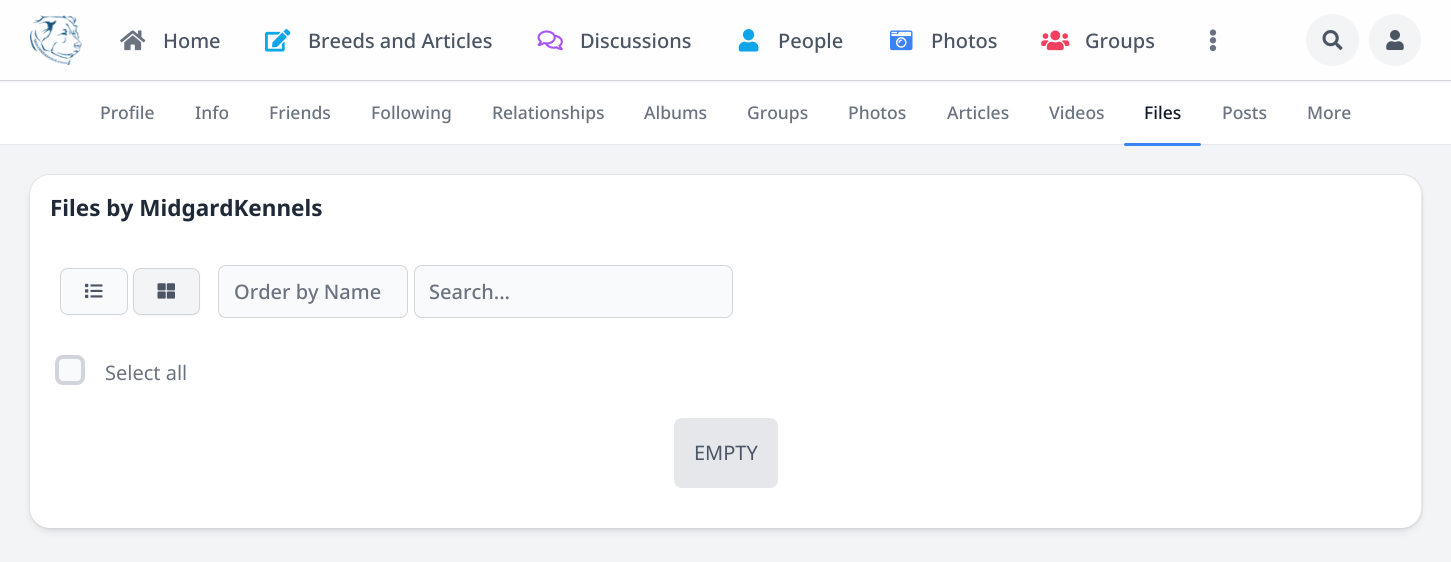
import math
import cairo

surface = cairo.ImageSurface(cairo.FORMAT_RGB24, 1451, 562)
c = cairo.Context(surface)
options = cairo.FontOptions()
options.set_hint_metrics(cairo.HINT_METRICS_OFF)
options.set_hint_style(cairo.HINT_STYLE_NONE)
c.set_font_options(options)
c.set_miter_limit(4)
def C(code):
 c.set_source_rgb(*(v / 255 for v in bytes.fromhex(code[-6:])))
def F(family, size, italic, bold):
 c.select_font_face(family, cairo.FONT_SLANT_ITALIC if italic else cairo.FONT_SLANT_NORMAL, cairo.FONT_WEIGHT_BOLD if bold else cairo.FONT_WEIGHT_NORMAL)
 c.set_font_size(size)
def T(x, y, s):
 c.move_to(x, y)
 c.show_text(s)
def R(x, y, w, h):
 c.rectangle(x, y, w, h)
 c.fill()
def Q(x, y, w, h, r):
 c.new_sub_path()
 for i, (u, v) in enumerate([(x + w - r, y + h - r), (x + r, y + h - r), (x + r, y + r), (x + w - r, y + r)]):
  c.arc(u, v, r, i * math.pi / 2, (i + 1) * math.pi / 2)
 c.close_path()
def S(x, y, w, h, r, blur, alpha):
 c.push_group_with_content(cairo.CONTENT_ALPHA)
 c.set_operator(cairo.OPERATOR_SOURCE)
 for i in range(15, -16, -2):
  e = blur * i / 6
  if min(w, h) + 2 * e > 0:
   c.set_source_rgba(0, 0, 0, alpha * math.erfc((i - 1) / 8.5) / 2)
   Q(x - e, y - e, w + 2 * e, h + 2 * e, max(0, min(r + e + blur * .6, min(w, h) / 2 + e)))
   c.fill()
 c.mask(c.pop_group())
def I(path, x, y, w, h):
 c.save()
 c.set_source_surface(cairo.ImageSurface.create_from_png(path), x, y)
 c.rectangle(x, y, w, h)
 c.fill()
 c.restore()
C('f3f4f6')
c.paint()
C('ffffff')
R(0,81,1451,63)
C('000000')
S(0,1,1451,80,0,2,.1)
c.rectangle(-.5,-.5,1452,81)
C('d1d5db')
c.set_line_width(1)
c.stroke()
C('fefeff')
R(0,0,1451,80)
I('1.png',30,15,52,50)
I('2.png',120,30,26,21)
F('Noto Sans Medium',20,0,0)
C('4b5563')
T(163,48,'Home')
I('3.png',265,29,26,23)
T(308,48,'Breeds and Articles')
I('4.png',537,30,26,21)
T(580,48,'Discussions')
I('5.png',738,29,21,23)
T(778,48,'People')
I('6.png',890,30,23,21)
T(931,48,'Photos')
I('7.png',1041,30,29,21)
T(1085,48,'Groups')
I('8.png',1209,29,8,23)
C('f3f4f6')
Q(1306,14,53,52,26)
c.fill()
I('9.png',1322,30,21,20)
c.arc(1395,40,26,0,2 * math.pi)
c.fill()
I('10.png',1386,30,18,20)
C('e5e7eb')
R(0,144,1451,1)
F('Noto Sans Medium',17.5,0,0)
C('6b7280')
T(100,119,'Profile')
T(195,119,'Info')
T(269,119,'Friends')
T(371,119,'Following')
T(492,119,'Relationships')
T(644,119,'Albums')
T(747,119,'Groups')
T(848,119,'Photos')
T(947,119,'Articles')
T(1049,119,'Videos')
C('111827')
T(1144,119,'Files')
C('3b82f6')
Q(1124,143,77,3,1.5)
c.fill()
C('6b7280')
T(1222,119,'Posts')
T(1307,119,'More')
C('000000')
S(33,180,1386,348,18,2.5,.1)
S(31,181,1389,350,19,4,.1)
Q(29.5,174.5,1393,354,20.5)
c.set_source_rgba(0.82,0.835,0.859,0.5)
c.stroke()
C('ffffff')
Q(30,175,1391,353,20)
c.fill()
F('Noto Sans',22.5,0,1)
C('1f2937')
T(50,216,'Files by MidgardKennels')
C('f9fafb')
Q(60.5,268.5,67,46,7.5)
c.fill_preserve()
C('d1d5db')
c.stroke()
I('11.png',85,283,18,16)
C('000000')
S(133,269,67,47,8,1,.05)
C('f3f4f6')
Q(133.5,268.5,66,46,7.5)
c.fill_preserve()
C('d1d5db')
c.stroke()
I('12.png',157,283,18,16)
C('f9fafb')
Q(218.5,265.5,189,52,7.5)
c.fill_preserve()
C('d1d5db')
c.stroke()
F('Noto Sans Medium',20,0,0)
C('6b7280')
T(234,299,'Order by Name')
C('f9fafb')
Q(414.5,265.5,318,52,7.5)
c.fill_preserve()
C('d1d5db')
c.stroke()
C('6b7280')
T(429,299,'Search...')
C('f9fafb')
Q(57,357,26,26,6)
c.fill_preserve()
C('d1d5db')
c.set_line_width(4)
c.stroke()
F('Noto Sans',20,0,0)
C('6b7280')
T(105,380,'Select all')
C('e5e7eb')
Q(674,418,104,70,8)
c.fill()
C('4b5563')
T(694,460,'EMPTY')
surface.write_to_png('o.png')
